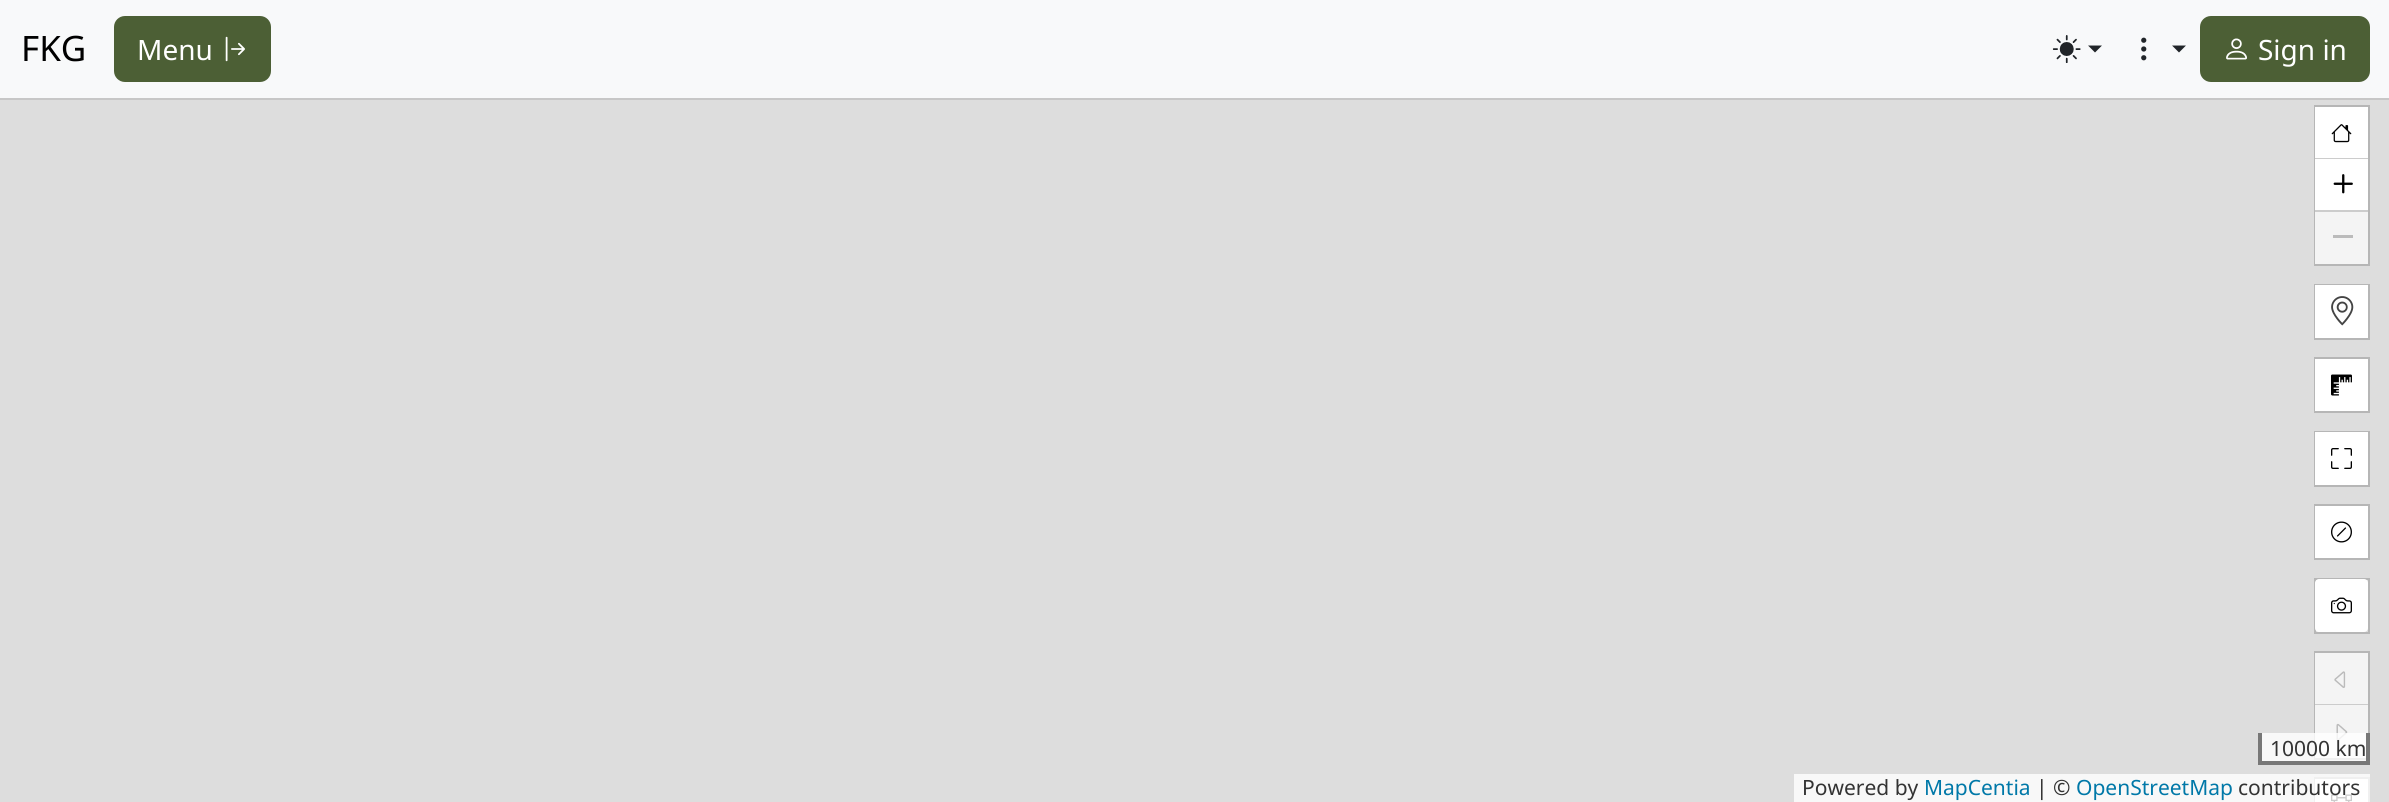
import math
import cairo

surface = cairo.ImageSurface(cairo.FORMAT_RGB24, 2389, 802)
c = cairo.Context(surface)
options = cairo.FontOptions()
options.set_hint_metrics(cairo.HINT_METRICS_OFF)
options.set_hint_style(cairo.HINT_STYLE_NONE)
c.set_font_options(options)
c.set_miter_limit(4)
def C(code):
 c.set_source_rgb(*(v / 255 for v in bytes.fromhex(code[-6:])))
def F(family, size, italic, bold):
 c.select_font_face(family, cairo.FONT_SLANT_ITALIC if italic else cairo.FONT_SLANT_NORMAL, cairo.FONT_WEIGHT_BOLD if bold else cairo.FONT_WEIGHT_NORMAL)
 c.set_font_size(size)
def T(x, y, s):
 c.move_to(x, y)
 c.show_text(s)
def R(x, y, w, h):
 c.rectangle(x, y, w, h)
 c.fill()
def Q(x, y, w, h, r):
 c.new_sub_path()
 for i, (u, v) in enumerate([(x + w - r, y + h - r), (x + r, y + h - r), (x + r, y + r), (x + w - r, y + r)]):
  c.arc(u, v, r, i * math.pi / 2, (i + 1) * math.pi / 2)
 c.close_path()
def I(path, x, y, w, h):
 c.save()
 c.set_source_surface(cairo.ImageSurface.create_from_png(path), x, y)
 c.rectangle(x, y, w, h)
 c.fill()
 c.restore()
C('dddddd')
c.paint()
c.rectangle(-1,-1,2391,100)
C('c7c7c7')
c.stroke()
C('f8f9fa')
R(0,0,2389,98)
F('Noto Sans',35,0,0)
C('000000')
T(21,61,'FKG')
C('4c5f35')
Q(115,17,155,64,10)
c.fill_preserve()
c.stroke()
F('Noto Sans',28,0,0)
C('ffffff')
T(137,60,'Menu')
I('1.png',225,36,20,26)
I('2.png',2052,35,29,28)
C('212529')
c.new_path()
c.move_to(2088,45.5)
c.line_to(2102,45.5)
c.line_to(2095,52.5)
c.close_path()
c.fill()
I('3.png',2141,37,6,24)
c.new_path()
c.move_to(2172,45.5)
c.line_to(2186,45.5)
c.line_to(2179,52.5)
c.close_path()
c.fill()
C('4c5f35')
Q(2201,17,168,64,10)
c.fill_preserve()
c.stroke()
I('4.png',2226,38,21,22)
C('ffffff')
T(2258,60,'Sign in')
C('f8f8f8')
R(1794,774,576,28)
c.rectangle(2315,106,54,159)
C('b6b6b6')
c.stroke()
C('ffffff')
R(2315,107,53,51)
C('cccccc')
R(2315,158,53,1)
I('5.png',2331,124,21,19)
C('ffffff')
R(2315,159,53,51)
C('cccccc')
R(2315,210,53,2)
I('6.png',2333,174,20,20)
C('f4f4f4')
R(2315,212,53,52)
C('bbbbbb')
R(2333,235,20,3)
c.rectangle(2315,285,54,54)
C('b6b6b6')
c.stroke()
C('ffffff')
R(2315,285,53,53)
I('7.png',2331,296,23,30)
c.rectangle(2315,358,54,54)
C('b6b6b6')
c.stroke()
C('ffffff')
R(2315,359,53,52)
I('8.png',2331,374,21,22)
c.rectangle(2315,432,54,54)
C('b6b6b6')
c.stroke()
C('ffffff')
R(2315,432,53,53)
I('9.png',2331,448,21,21)
c.rectangle(2315,505,54,54)
C('b6b6b6')
c.stroke()
C('ffffff')
R(2315,506,53,52)
I('10.png',2331,521,21,22)
c.rectangle(2315,579,54,54)
C('b6b6b6')
c.stroke()
C('ffffff')
Q(2315,579,53,53,4)
c.fill()
I('11.png',2331,597,21,17)
c.rectangle(2315,652,54,107)
C('b6b6b6')
c.stroke()
C('f4f4f4')
R(2315,653,53,51)
C('cccccc')
R(2315,704,53,1)
I('12.png',2334,671,12,17)
C('f4f4f4')
R(2315,705,53,53)
I('13.png',2336,723,12,18)
c.rectangle(2315,778,54,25)
C('f0f0f0')
c.stroke()
C('ffffff')
R(2315,779,53,23)
I('14.png',2331,794,21,8)
c.set_source_rgba(1,1,1,0.8)
R(2262,733,104,28)
C('777777')
R(2366,733,4,32)
R(2258,761,112,4)
R(2258,733,4,32)
F('Noto Sans',21,0,0)
C('333333')
T(2270,756,'10000 km')
T(1802,795,'Powered by')
C('0078a8')
T(1924,795,'MapCentia')
C('333333')
T(2036,795,'| ©')
C('0078a8')
T(2076,795,'OpenStreetMap')
C('333333')
T(2238,795,'contributors')
surface.write_to_png('o.png')
